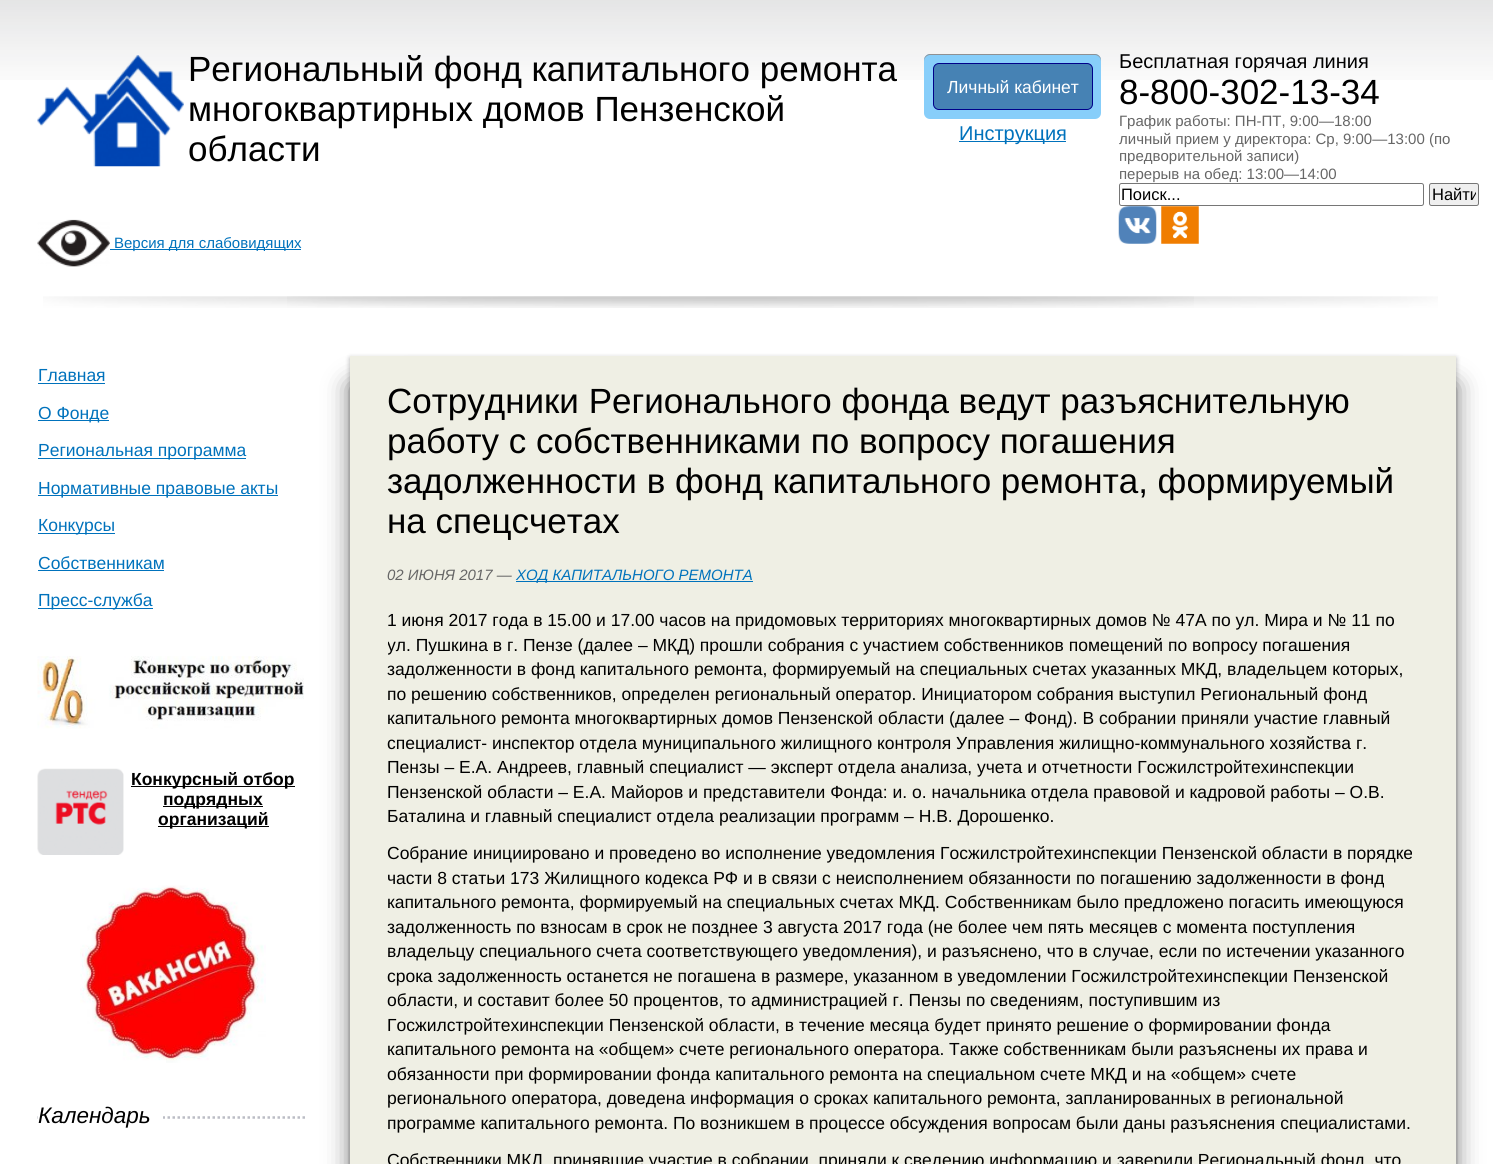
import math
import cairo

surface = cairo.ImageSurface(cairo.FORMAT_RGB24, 1493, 1164)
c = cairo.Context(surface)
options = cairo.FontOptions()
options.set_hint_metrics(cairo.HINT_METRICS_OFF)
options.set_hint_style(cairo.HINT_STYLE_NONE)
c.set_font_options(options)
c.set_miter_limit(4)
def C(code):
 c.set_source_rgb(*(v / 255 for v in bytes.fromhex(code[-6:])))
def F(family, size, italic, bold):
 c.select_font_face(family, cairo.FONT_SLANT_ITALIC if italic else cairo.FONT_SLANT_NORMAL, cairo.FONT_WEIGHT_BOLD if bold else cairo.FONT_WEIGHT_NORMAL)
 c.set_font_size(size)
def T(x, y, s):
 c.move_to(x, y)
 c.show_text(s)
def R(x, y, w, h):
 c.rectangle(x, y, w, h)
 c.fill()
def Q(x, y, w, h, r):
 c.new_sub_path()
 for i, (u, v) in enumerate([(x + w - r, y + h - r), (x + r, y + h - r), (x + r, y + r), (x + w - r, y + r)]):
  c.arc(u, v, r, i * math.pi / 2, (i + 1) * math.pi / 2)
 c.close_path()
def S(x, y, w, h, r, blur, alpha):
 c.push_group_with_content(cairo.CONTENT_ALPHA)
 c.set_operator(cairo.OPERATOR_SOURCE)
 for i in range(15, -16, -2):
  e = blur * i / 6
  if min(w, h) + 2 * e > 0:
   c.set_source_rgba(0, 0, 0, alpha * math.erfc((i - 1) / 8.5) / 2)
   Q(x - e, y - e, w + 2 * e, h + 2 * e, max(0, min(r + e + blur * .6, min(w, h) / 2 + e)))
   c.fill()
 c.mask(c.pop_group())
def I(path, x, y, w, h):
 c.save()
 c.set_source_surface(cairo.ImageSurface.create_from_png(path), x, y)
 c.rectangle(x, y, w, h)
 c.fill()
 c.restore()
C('ffffff')
c.paint()
I('1.png',0,0,1493,80)
I('2.png',43,296,1151,12)
I('3.png',287,296,1151,12)
I('4.png',37,55,147,112)
F('Liberation Sans',35,0,0)
C('000000')
T(188,81,'Региональный фонд капитального ремонта')
T(188,121,'многоквартирных домов Пензенской')
T(188,161,'области')
C('87cefa')
Q(924,54,177,65,6)
c.fill()
C('4682b4')
Q(933.5,63.5,159,46,5.5)
c.fill_preserve()
C('00008b')
c.set_line_width(1)
c.stroke()
C('909193')
c.new_path()
c.move_to(930,55)
c.line_to(1095,55)
c.curve_to(1098,55,1101,58,1101,61)
c.line_to(1101,60)
c.curve_to(1101,57,1098,54,1095,54)
c.line_to(930,54)
c.curve_to(927,54,924,57,924,60)
c.line_to(924,61)
c.curve_to(924,58,927,55,930,55)
c.close_path()
c.fill()
F('Liberation Sans',17.5,0,0)
C('ffffff')
T(947,93,'Личный кабинет')
C('0072bc')
R(959,141,107,1)
F('Liberation Sans',20,0,0)
T(959,140,'Инструкция')
C('000000')
T(1119,68,'Бесплатная горячая линия')
F('Liberation Sans',35,0,0)
T(1119,104,'8-800-302-13-34')
F('Liberation Sans',15,0,0)
C('666666')
T(1119,126,'График работы: ПН-ПТ, 9:00—18:00')
T(1119,144,'личный прием у директора: Ср, 9:00—13:00 (по')
T(1119,161,'предворительной записи)')
T(1119,179,'перерыв на обед: 13:00—14:00')
Q(1119.5,183.5,304,22,2)
C('767676')
c.stroke()
F('Liberation Sans',16.5,0,0)
C('000000')
T(1121,200,'Поиск...')
C('efefef')
Q(1429.5,183.5,49,22,2)
c.fill_preserve()
C('767676')
c.stroke()
c.save()
c.rectangle(1431,185,45,19)
c.clip()
C('000000')
T(1432,200,'Найти')
c.restore()
I('5.png',1118,206,39,38)
I('6.png',1161,206,38,38)
I('7.png',37,219,73,48)
C('0072bc')
R(110,249,191,1)
F('Liberation Sans',15,0,0)
T(114,248,'Версия для слабовидящих')
F('Liberation Sans',17.5,0,0)
T(38,381,'Главная')
R(38,383,67,1)
R(38,420,71,1)
T(38,419,'О Фонде')
R(38,458,208,1)
T(38,456,'Региональная программа')
R(38,495,240,1)
T(38,494,'Нормативные правовые акты')
R(38,533,77,1)
T(38,531,'Конкурсы')
T(38,569,'Собственникам')
R(38,570,126,1)
R(38,608,115,1)
T(38,606,'Пресс-служба')
I('8.png',37,656,267,73)
I('9.png',37,768,87,87)
C('000000')
R(131,786,164,1)
F('Liberation Sans',17.5,0,1)
T(131,785,'Конкурсный отбор')
R(163,806,100,1)
T(163,805,'подрядных')
R(158,826,111,1)
T(158,825,'организаций')
I('10.png',80,885,186,178)
c.new_path()
c.move_to(37.5,1117.5)
c.line_to(307.5,1117.5)
C('bbbdc5')
c.set_line_width(2.5)
c.set_dash([2.5,2.5])
c.stroke()
C('ffffff')
R(38,1116,125,3)
F('Liberation Sans',22.5,1,0)
C('000000')
T(38,1123,'Календарь')
C('000000')
S(408,385,1048,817,0,12.5,.5)
S(350,385,1049,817,0,12.5,.5)
S(350,358,1106,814,0,2.5,.3)
C('efefe4')
R(350,356,1106,808)
F('Liberation Sans',35,0,0)
C('000000')
T(387,413,'Сотрудники Регионального фонда ведут разъяснительную')
T(387,453,'работу с собственниками по вопросу погашения')
T(387,493,'задолженности в фонд капитального ремонта, формируемый')
T(387,533,'на спецсчетах')
F('Liberation Sans',15,1,0)
C('666666')
T(387,580,'02 ИЮНЯ 2017 —')
C('0072bc')
R(516,581,237,1)
T(516,580,'ХОД КАПИТАЛЬНОГО РЕМОНТА')
F('Liberation Sans',17.5,0,0)
C('000000')
T(387,626,'1 июня 2017 года в 15.00 и 17.00 часов на придомовых территориях многоквартирных домов № 47А по ул. Мира и № 11 по')
c.save()
c.rectangle(388,596,1031,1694)
c.clip()
T(387,651,'ул. Пушкина в г. Пензе (далее – МКД) прошли собрания с участием собственников помещений по вопросу погашения')
c.restore()
T(387,675,'задолженности в фонд капитального ремонта, формируемый на специальных счетах указанных МКД, владельцем которых,')
T(387,700,'по решению собственников, определен региональный оператор. Инициатором собрания выступил Региональный фонд')
T(387,724,'капитального ремонта многоквартирных домов Пензенской области (далее – Фонд). В собрании приняли участие главный')
T(387,749,'специалист- инспектор отдела муниципального жилищного контроля Управления жилищно-коммунального хозяйства г.')
T(387,773,'Пензы – Е.А. Андреев, главный специалист — эксперт отдела анализа, учета и отчетности Госжилстройтехинспекции')
T(387,798,'Пензенской области – Е.А. Майоров и представители Фонда: и. о. начальника отдела правовой и кадровой работы – О.В.')
T(387,822,'Баталина и главный специалист отдела реализации программ – Н.В. Дорошенко.')
T(387,859,'Собрание инициировано и проведено во исполнение уведомления Госжилстройтехинспекции Пензенской области в порядке')
T(387,884,'части 8 статьи 173 Жилищного кодекса РФ и в связи с неисполнением обязанности по погашению задолженности в фонд')
T(387,908,'капитального ремонта, формируемый на специальных счетах МКД. Собственникам было предложено погасить имеющуюся')
T(387,933,'задолженность по взносам в срок не позднее 3 августа 2017 года (не более чем пять месяцев с момента поступления')
T(387,957,'владельцу специального счета соответствующего уведомления), и разъяснено, что в случае, если по истечении указанного')
T(387,982,'срока задолженность останется не погашена в размере, указанном в уведомлении Госжилстройтехинспекции Пензенской')
T(387,1006,'области, и составит более 50 процентов, то администрацией г. Пензы по сведениям, поступившим из')
T(387,1031,'Госжилстройтехинспекции Пензенской области, в течение месяца будет принято решение о формировании фонда')
T(387,1055,'капитального ремонта на «общем» счете регионального оператора. Также собственникам были разъяснены их права и')
T(387,1080,'обязанности при формировании фонда капитального ремонта на специальном счете МКД и на «общем» счете')
T(387,1104,'регионального оператора, доведена информация о сроках капитального ремонта, запланированных в региональной')
T(387,1129,'программе капитального ремонта. По возникшем в процессе обсуждения вопросам были даны разъяснения специалистами.')
T(387,1166,'Собственники МКД, принявшие участие в собрании, приняли к сведению информацию и заверили Региональный фонд, что')
surface.write_to_png('o.png')
